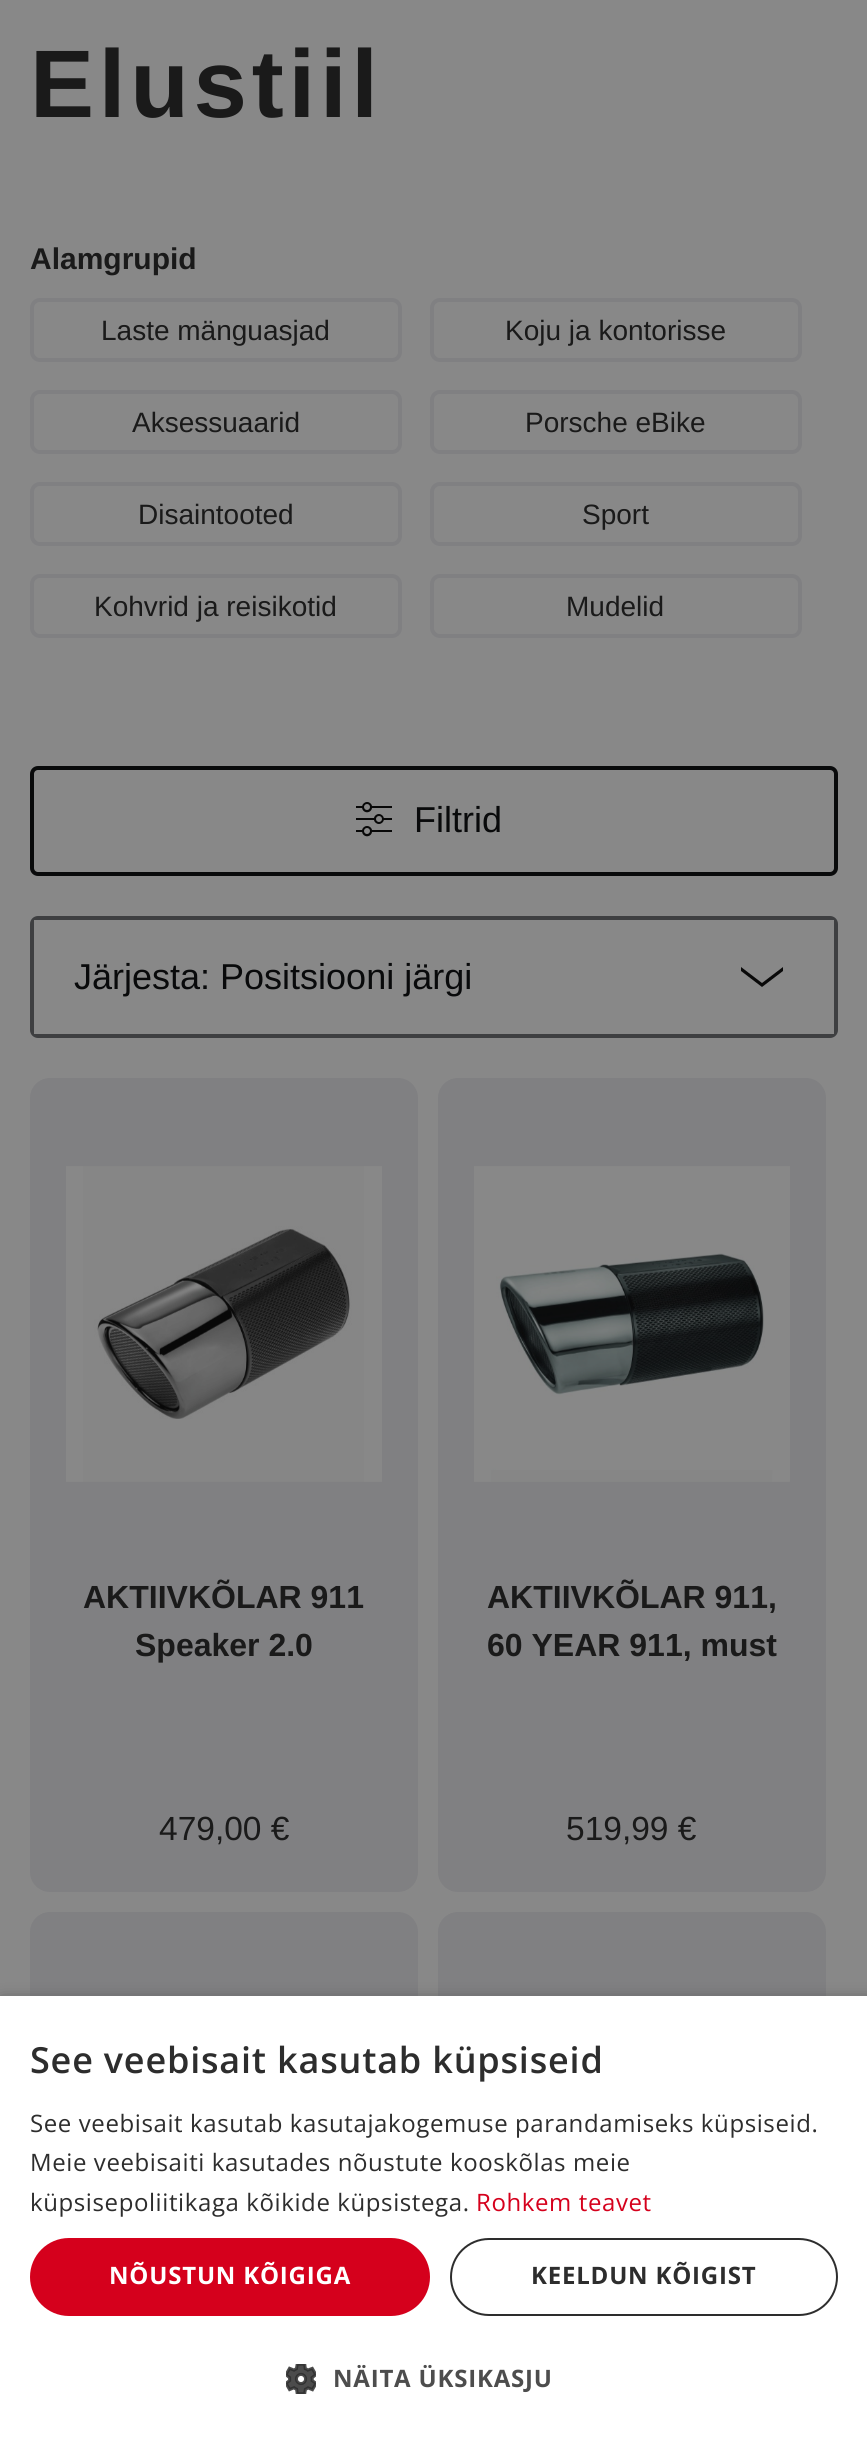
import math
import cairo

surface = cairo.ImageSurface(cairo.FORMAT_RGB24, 867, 2444)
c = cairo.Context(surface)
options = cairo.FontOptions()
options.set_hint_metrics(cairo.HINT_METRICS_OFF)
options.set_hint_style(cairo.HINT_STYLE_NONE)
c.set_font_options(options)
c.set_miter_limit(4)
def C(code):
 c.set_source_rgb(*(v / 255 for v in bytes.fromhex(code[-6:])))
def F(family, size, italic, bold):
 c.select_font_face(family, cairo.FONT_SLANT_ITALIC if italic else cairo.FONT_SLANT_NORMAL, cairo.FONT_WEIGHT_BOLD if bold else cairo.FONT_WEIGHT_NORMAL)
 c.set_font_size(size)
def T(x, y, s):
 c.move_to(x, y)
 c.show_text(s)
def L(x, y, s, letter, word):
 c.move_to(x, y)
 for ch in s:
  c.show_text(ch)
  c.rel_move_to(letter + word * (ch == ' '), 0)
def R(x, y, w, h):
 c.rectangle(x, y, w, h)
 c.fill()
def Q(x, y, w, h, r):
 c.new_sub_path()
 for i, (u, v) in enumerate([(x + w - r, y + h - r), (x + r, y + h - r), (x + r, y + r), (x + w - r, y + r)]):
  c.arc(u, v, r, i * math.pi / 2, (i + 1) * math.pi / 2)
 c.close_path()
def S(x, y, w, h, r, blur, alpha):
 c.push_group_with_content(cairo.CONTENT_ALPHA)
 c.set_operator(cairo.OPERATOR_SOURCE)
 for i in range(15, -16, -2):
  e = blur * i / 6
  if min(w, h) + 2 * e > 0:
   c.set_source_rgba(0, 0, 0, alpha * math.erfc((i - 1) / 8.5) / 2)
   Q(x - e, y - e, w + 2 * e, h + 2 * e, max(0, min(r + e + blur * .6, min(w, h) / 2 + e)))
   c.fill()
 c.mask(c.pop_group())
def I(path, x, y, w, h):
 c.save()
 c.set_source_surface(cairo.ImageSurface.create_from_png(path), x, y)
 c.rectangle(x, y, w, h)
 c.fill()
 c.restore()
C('888888')
c.paint()
F('Liberation Sans',96,0,1)
C('1a1a1a')
L(30,117,'Elustiil',4.75,0)
F('Liberation Sans',30,0,1)
T(30,269,'Alamgrupid')
Q(32,300,368,60,8)
C('808082')
c.set_line_width(4)
c.stroke()
F('Liberation Sans',28,0,0)
C('1a1a1a')
T(101,340,'Laste mänguasjad')
Q(432,300,368,60,8)
C('808082')
c.stroke()
C('1a1a1a')
T(505,340,'Koju ja kontorisse')
Q(32,392,368,60,8)
C('808082')
c.stroke()
C('1a1a1a')
T(132,432,'Aksessuaarid')
Q(432,392,368,60,8)
C('808082')
c.stroke()
C('1a1a1a')
T(525,432,'Porsche eBike')
Q(32,484,368,60,8)
C('808082')
c.stroke()
C('1a1a1a')
T(138,524,'Disaintooted')
Q(432,484,368,60,8)
C('808082')
c.stroke()
C('1a1a1a')
T(582,524,'Sport')
Q(32,576,368,60,8)
C('808082')
c.stroke()
C('1a1a1a')
T(94,616,'Kohvrid ja reisikotid')
Q(432,576,368,60,8)
C('808082')
c.stroke()
C('1a1a1a')
T(566,616,'Mudelid')
Q(32,768,804,106,6)
C('090a0b')
c.stroke()
I('1.png',356,802,36,35)
F('Liberation Sans',36,0,0)
T(414,832,'Filtrid')
Q(32,918,804,118,6)
C('3e3f41')
c.stroke()
C('888888')
R(34,920,800,114)
C('090a0b')
T(74,989,'Järjesta: Positsiooni järgi')
C('090909')
c.new_path()
c.move_to(783,967)
c.line_to(762,983)
c.line_to(741,967)
c.line_to(741,971)
c.line_to(762,987)
c.line_to(783,971)
c.close_path()
c.fill()
C('808082')
Q(30,1078,388,814,20)
c.fill()
I('2.png',66,1166,316,316)
F('Liberation Sans',32,0,1)
C('1a1a1a')
T(83,1608,'AKTIIVKÕLAR 911')
T(135,1656,'Speaker 2.0')
F('Liberation Sans',33.5,0,0)
T(159,1840,'479,00 €')
C('808082')
Q(438,1078,388,814,20)
c.fill()
I('3.png',474,1166,316,316)
F('Liberation Sans',32,0,1)
C('1a1a1a')
T(487,1608,'AKTIIVKÕLAR 911,')
T(487,1656,'60 YEAR 911, must')
F('Liberation Sans',33.5,0,0)
T(566,1840,'519,99 €')
C('808082')
Q(30,1912,388,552,20)
c.fill()
Q(438,1912,388,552,20)
c.fill()
C('000000')
S(2,2000,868,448,0,8,.35)
C('ffffff')
R(0,1996,867,448)
F('Open Sans SemiBold',36,0,0)
C('2d2d2d')
L(30,2073,'See veebisait kasutab küpsiseid',.8,0)
F('Open Sans',24,0,0)
L(30,2132,'See veebisait kasutab kasutajakogemuse parandamiseks küpsiseid.',.6,0)
L(30,2171,'Meie veebisaiti kasutades nõustute kooskõlas meie',.6,0)
L(30,2211,'küpsisepoliitikaga kõikide küpsistega.',.6,0)
C('d5001c')
L(476,2211,'Rohkem teavet',.6,0)
Q(30,2238,400,78,39)
c.fill()
F('Open Sans',24,0,1)
C('ffffff')
L(109,2284,'NÕUSTUN KÕIGIGA',.8,0)
Q(451,2239,386,76,38)
C('2d2d2d')
c.set_line_width(2)
c.stroke()
L(531,2284,'KEELDUN KÕIGIST',.8,0)
I('4.png',286,2364,30,30)
C('4d4d4d')
L(333,2387,'NÄITA ÜKSIKASJU',.8,0)
surface.write_to_png('o.png')
